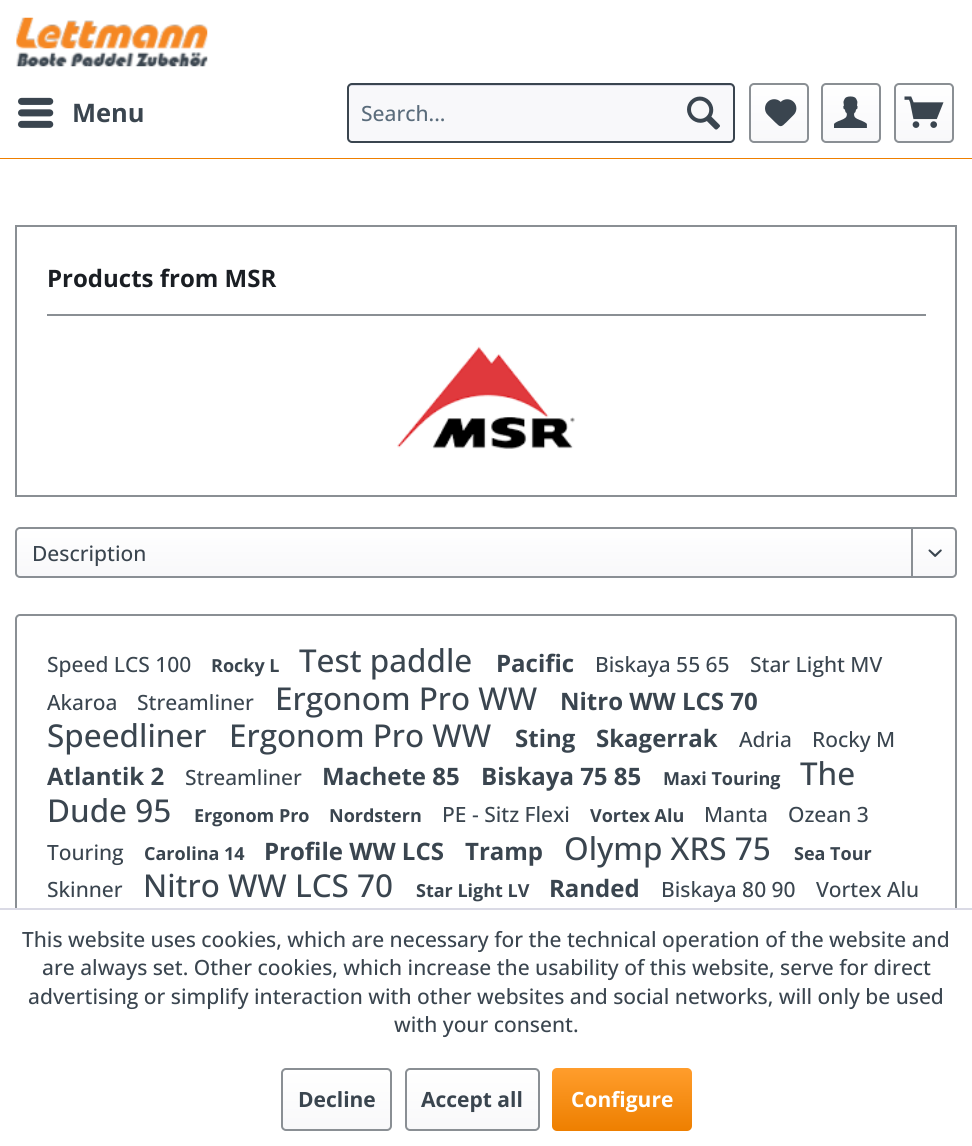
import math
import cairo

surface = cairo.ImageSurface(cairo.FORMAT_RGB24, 972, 1146)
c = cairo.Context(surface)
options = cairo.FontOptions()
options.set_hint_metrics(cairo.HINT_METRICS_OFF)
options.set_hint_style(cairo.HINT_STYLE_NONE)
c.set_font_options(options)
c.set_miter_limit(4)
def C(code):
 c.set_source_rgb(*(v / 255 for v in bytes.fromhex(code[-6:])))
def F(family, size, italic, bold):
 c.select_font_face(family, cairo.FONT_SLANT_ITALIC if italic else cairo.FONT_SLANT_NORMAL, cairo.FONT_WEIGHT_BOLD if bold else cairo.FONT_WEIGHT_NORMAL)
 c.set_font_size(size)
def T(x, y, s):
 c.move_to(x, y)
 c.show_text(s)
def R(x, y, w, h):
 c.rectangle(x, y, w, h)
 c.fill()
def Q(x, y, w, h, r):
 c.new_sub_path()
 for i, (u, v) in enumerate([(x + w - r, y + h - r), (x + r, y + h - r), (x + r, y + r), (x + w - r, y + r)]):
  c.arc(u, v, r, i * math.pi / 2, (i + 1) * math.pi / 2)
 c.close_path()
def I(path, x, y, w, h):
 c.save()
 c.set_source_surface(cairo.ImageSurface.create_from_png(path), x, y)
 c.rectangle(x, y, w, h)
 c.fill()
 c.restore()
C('ffffff')
c.paint()
C('ee7f00')
R(0,158,972,1)
I('1.png',16,17,192,50)
I('2.png',18,97,36,31)
F('Open Sans',25.5,0,1)
C('3a454f')
T(72,122,'Menu')
C('f8f8fa')
Q(347,83,388,60,5)
c.fill()
C('dadae5')
c.new_path()
c.move_to(351,86)
c.line_to(730,86)
c.curve_to(732,86,734,87,734,88)
c.curve_to(734,86,733,84,731,84)
c.line_to(351,84)
c.line_to(349,85)
c.line_to(348,88)
c.curve_to(348,87,349,86,351,86)
c.close_path()
c.fill()
Q(348,84,386,58,4)
C('3a454f')
c.stroke()
F('Open Sans Medium',21,0,0)
C('5a6c7b')
T(361,121,'Search...')
I('3.png',687,96,33,34)
gradient = cairo.LinearGradient(779,84,779,141)
gradient.add_color_stop_rgba(0,1,1,1,1)
gradient.add_color_stop_rgba(1,0.973,0.973,0.98,1)
c.set_source(gradient)
Q(750,84,57,57,3)
c.fill()
Q(750,84,58,58,4)
C('8a8f94')
c.stroke()
I('4.png',765,99,32,28)
gradient = cairo.LinearGradient(851,84,851,141)
gradient.add_color_stop_rgba(0,1,1,1,1)
gradient.add_color_stop_rgba(1,0.973,0.973,0.98,1)
c.set_source(gradient)
Q(822,84,57,57,3)
c.fill()
Q(822,84,58,58,4)
C('8a8f94')
c.stroke()
I('5.png',834,96,33,32)
gradient = cairo.LinearGradient(924,84,924,141)
gradient.add_color_stop_rgba(0,1,1,1,1)
gradient.add_color_stop_rgba(1,0.973,0.973,0.98,1)
c.set_source(gradient)
Q(896,84,57,57,3)
c.fill()
Q(895,84,58,58,4)
C('8a8f94')
c.stroke()
I('6.png',904,96,40,32)
c.rectangle(16,226,940,270)
c.stroke()
R(47,314,879,2)
F('Open Sans',24,0,1)
C('1a1e23')
T(47,287,'Products from MSR')
I('7.png',397,346,178,103)
gradient = cairo.LinearGradient(486,528,486,576)
gradient.add_color_stop_rgba(0,1,1,1,1)
gradient.add_color_stop_rgba(1,0.973,0.973,0.98,1)
c.set_source(gradient)
Q(17,528,939,48,3)
c.fill()
Q(16,528,940,49,4)
C('8a8f94')
c.stroke()
F('Open Sans Medium',21,0,0)
C('3a454f')
T(32,561,'Description')
C('8a8f94')
R(911,528,2,50)
I('8.png',928,549,14,8)
Q(16,615,940,395,4)
c.stroke()
C('3a454f')
T(47,672,'Speed LCS 100')
F('Open Sans',18,0,1)
T(211,672,'Rocky L')
F('Open Sans Medium',31.5,0,0)
T(299,672,'Test paddle')
F('Open Sans',24,0,1)
T(496,672,'Pacific')
F('Open Sans Medium',21,0,0)
T(595,672,'Biskaya 55 65')
T(750,672,'Star Light MV')
T(47,710,'Akaroa')
T(137,710,'Streamliner')
F('Open Sans Medium',31.5,0,0)
T(275,710,'Ergonom Pro WW')
F('Open Sans',24,0,1)
T(560,710,'Nitro WW LCS 70')
F('Open Sans Medium',31.5,0,0)
T(47,747,'Speedliner')
T(229,747,'Ergonom Pro WW')
F('Open Sans',24,0,1)
T(515,747,'Sting')
T(596,747,'Skagerrak')
F('Open Sans Medium',21,0,0)
T(739,747,'Adria')
T(812,747,'Rocky M')
F('Open Sans',24,0,1)
T(47,785,'Atlantik 2')
F('Open Sans Medium',21,0,0)
T(185,785,'Streamliner')
F('Open Sans',24,0,1)
T(322,785,'Machete 85')
T(481,785,'Biskaya 75 85')
F('Open Sans',18,0,1)
T(663,785,'Maxi Touring')
F('Open Sans Medium',31.5,0,0)
T(800,785,'The')
T(47,822,'Dude 95')
F('Open Sans',18,0,1)
T(194,822,'Ergonom Pro')
T(329,822,'Nordstern')
F('Open Sans Medium',21,0,0)
T(442,822,'PE - Sitz Flexi')
F('Open Sans',18,0,1)
T(590,822,'Vortex Alu')
F('Open Sans Medium',21,0,0)
T(704,822,'Manta')
T(788,822,'Ozean 3')
T(47,860,'Touring')
F('Open Sans',18,0,1)
T(144,860,'Carolina 14')
F('Open Sans',24,0,1)
T(264,860,'Profile WW LCS')
T(465,860,'Tramp')
F('Open Sans Medium',31.5,0,0)
T(564,860,'Olymp XRS 75')
F('Open Sans',18,0,1)
T(794,860,'Sea Tour')
F('Open Sans Medium',21,0,0)
T(47,897,'Skinner')
F('Open Sans Medium',31.5,0,0)
T(143,897,'Nitro WW LCS 70')
F('Open Sans',18,0,1)
T(416,897,'Star Light LV')
F('Open Sans',24,0,1)
T(549,897,'Randed')
F('Open Sans Medium',21,0,0)
T(661,897,'Biskaya 80 90')
T(816,897,'Vortex Alu')
C('ffffff')
R(15,910,942,101)
C('dadae5')
R(0,908,972,2)
C('3a454f')
T(22,947,'This website uses cookies, which are necessary for the technical operation of the website and')
T(42,975,'are always set. Other cookies, which increase the usability of this website, serve for direct')
T(28,1004,'advertising or simplify interaction with other websites and social networks, will only be used')
T(394,1032,'with your consent.')
gradient = cairo.LinearGradient(336,1070,336,1130)
gradient.add_color_stop_rgba(0,1,1,1,1)
gradient.add_color_stop_rgba(1,0.973,0.973,0.98,1)
c.set_source(gradient)
Q(282,1070,108,60,3)
c.fill()
Q(282,1069,109,61,4)
C('8a8f94')
c.stroke()
F('Open Sans',21,0,1)
C('3a454f')
T(298,1107,'Decline')
gradient = cairo.LinearGradient(473,1070,473,1130)
gradient.add_color_stop_rgba(0,1,1,1,1)
gradient.add_color_stop_rgba(1,0.973,0.973,0.98,1)
c.set_source(gradient)
Q(407,1070,132,60,3)
c.fill()
Q(406,1069,133,61,4)
C('8a8f94')
c.stroke()
C('3a454f')
T(421,1107,'Accept all')
gradient = cairo.LinearGradient(622,1068,622,1131)
gradient.add_color_stop_rgba(0,1,0.616,0.173,1)
gradient.add_color_stop_rgba(1,0.933,0.498,0,1)
c.set_source(gradient)
Q(552,1068,140,63,5)
c.fill()
C('ffffff')
T(571,1107,'Configure')
surface.write_to_png('o.png')
